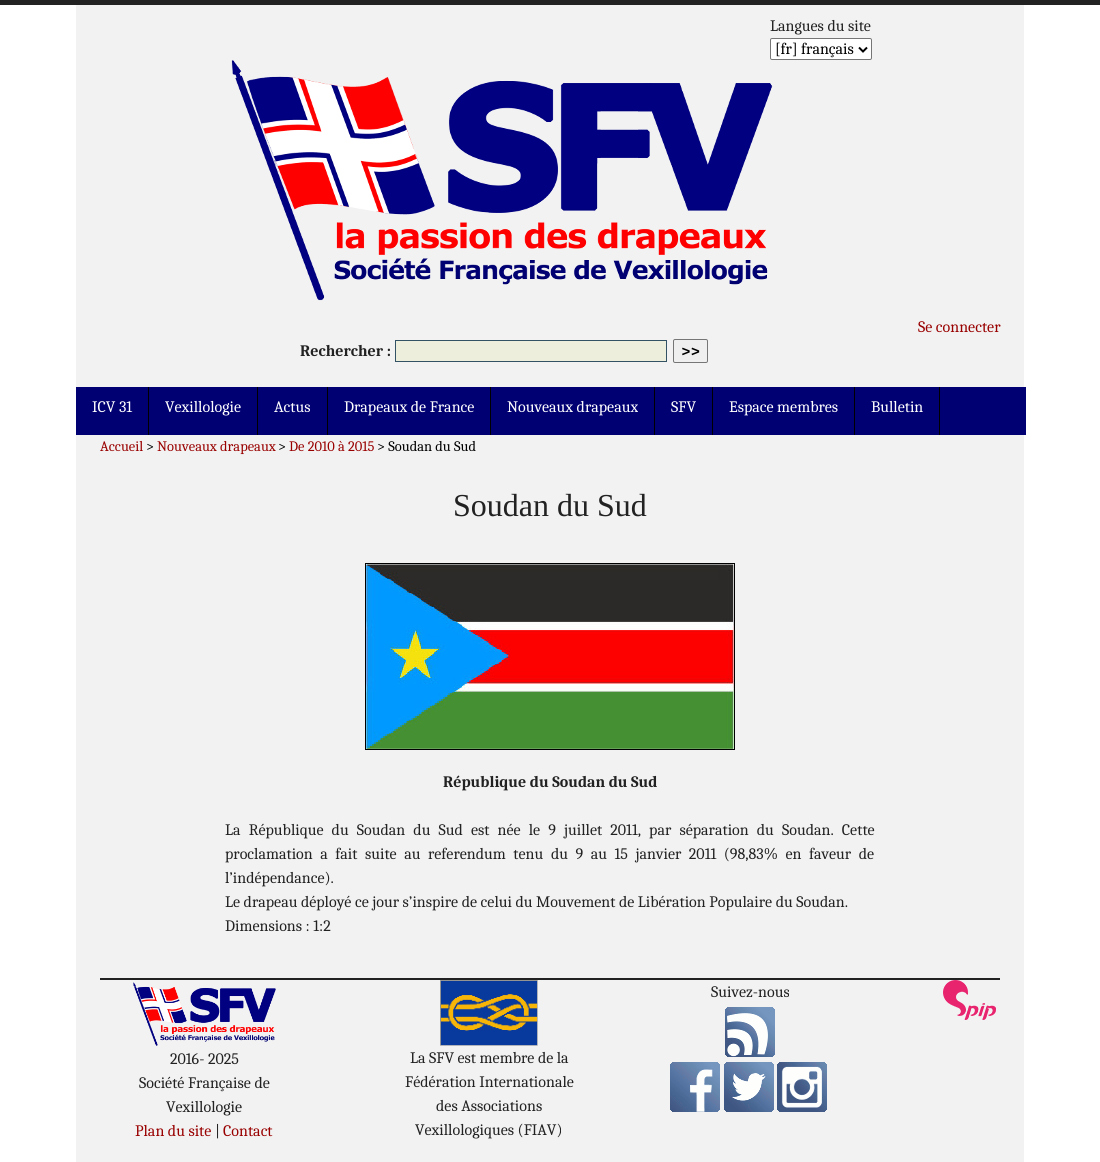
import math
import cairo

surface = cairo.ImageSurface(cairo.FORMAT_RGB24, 1100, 1162)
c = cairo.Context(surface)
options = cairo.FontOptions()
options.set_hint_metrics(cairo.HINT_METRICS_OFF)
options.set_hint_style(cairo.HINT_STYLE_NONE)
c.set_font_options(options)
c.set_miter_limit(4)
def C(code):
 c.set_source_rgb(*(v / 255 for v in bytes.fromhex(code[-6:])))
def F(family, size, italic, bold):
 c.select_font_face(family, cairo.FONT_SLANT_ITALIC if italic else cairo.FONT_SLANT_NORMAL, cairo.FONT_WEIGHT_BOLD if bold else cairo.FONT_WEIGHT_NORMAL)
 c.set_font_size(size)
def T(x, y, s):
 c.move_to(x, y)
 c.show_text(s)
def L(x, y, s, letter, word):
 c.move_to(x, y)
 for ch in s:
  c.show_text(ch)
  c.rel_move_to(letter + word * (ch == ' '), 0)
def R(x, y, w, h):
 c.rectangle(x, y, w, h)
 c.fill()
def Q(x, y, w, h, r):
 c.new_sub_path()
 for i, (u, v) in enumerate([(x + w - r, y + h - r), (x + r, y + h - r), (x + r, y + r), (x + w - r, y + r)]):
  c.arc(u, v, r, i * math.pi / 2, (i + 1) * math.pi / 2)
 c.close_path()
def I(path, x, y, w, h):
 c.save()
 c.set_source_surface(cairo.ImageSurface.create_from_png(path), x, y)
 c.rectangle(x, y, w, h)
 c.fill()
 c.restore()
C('ffffff')
c.paint()
C('222222')
R(0,0,1100,5)
C('f2f2f2')
R(76,5,948,1157)
F('Caladea',16,0,0)
C('222222')
T(770,31,'Langues du site')
C('ffffff')
Q(770.5,38.5,101,21,1.5)
c.fill_preserve()
C('767676')
c.set_line_width(1)
c.stroke()
c.new_path()
c.move_to(859,47.5)
c.line_to(863,51.5)
c.line_to(867,47.5)
C('000000')
c.set_line_width(2)
c.stroke()
T(775,54,'[fr] français')
I('1.png',231,60,542,241)
C('990000')
T(918,332,'Se connecter')
F('Caladea',16,0,1)
C('222222')
T(300,356,'Rechercher :')
C('eeeedd')
c.rectangle(395.5,340.5,271,21)
c.fill_preserve()
C('335364')
c.set_line_width(1)
c.stroke()
C('efefef')
Q(673.5,339.5,34,23,1.5)
c.fill_preserve()
C('767676')
c.stroke()
C('000000')
T(681,356,'>>')
C('000073')
R(76,387,950,48)
C('000000')
R(148,387,1,48)
F('Caladea',16,0,0)
C('ffffff')
T(92,412,'ICV 31')
C('000000')
R(257,387,1,48)
C('ffffff')
T(165,412,'Vexillologie')
C('000000')
R(327,387,1,48)
C('ffffff')
T(274,412,'Actus')
C('000000')
R(490,387,1,48)
C('ffffff')
T(344,412,'Drapeaux de France')
C('000000')
R(654,387,1,48)
C('ffffff')
T(507,412,'Nouveaux drapeaux')
C('000000')
R(712,387,1,48)
C('ffffff')
T(671,412,'SFV')
C('000000')
R(854,387,1,48)
C('ffffff')
T(729,412,'Espace membres')
C('000000')
R(939,387,1,48)
C('ffffff')
T(871,412,'Bulletin')
F('Caladea',14.5,0,0)
C('990000')
T(100,451,'Accueil')
C('000000')
T(146,451,'>')
C('990000')
T(157,451,'Nouveaux drapeaux')
C('000000')
T(278,451,'>')
C('990000')
T(289,451,'De 2010 à 2015')
C('000000')
T(377,451,'> Soudan du Sud')
F('Liberation Serif',32,0,0)
C('222222')
T(453,516,'Soudan du Sud')
c.rectangle(365.5,563.5,369,186)
C('000000')
c.stroke()
I('2.png',366,564,368,185)
F('Caladea',16,0,1)
C('222222')
T(443,787,'République du Soudan du Sud')
F('Caladea',16,0,0)
L(225,835,'La République du Soudan du Sud est née le 9 juillet 2011, par séparation du Soudan. Cette',0,4.6)
L(225,859,'proclamation a fait suite au referendum tenu',0,4)
L(551,859,'du 9 au 15 janvier 2011 (98,83% en faveur de',0,4)
T(225,883,'l’indépendance).')
T(225,907,'Le drapeau déployé ce jour s’inspire de celui du Mouvement de Libération Populaire du Soudan.')
T(225,931,'Dimensions : 1:2')
R(100,978,900,2)
T(711,997,'Suivez-nous')
I('3.png',725,1007,50,50)
I('4.png',670,1062,50,50)
I('5.png',724,1062,50,50)
I('6.png',777,1062,50,50)
I('7.png',943,980,53,40)
I('8.png',133,982,143,64)
T(170,1064,'2016- 2025')
T(139,1088,'Société Française de')
T(166,1112,'Vexillologie')
C('990000')
T(135,1136,'Plan du site')
C('222222')
T(215,1136,'|')
C('990000')
T(223,1136,'Contact')
I('9.png',440,980,98,66)
C('222222')
T(410,1063,'La SFV est membre de la')
T(405,1087,'Fédération Internationale')
T(436,1111,'des Associations')
T(415,1135,'Vexillologiques (FIAV)')
surface.write_to_png('o.png')
